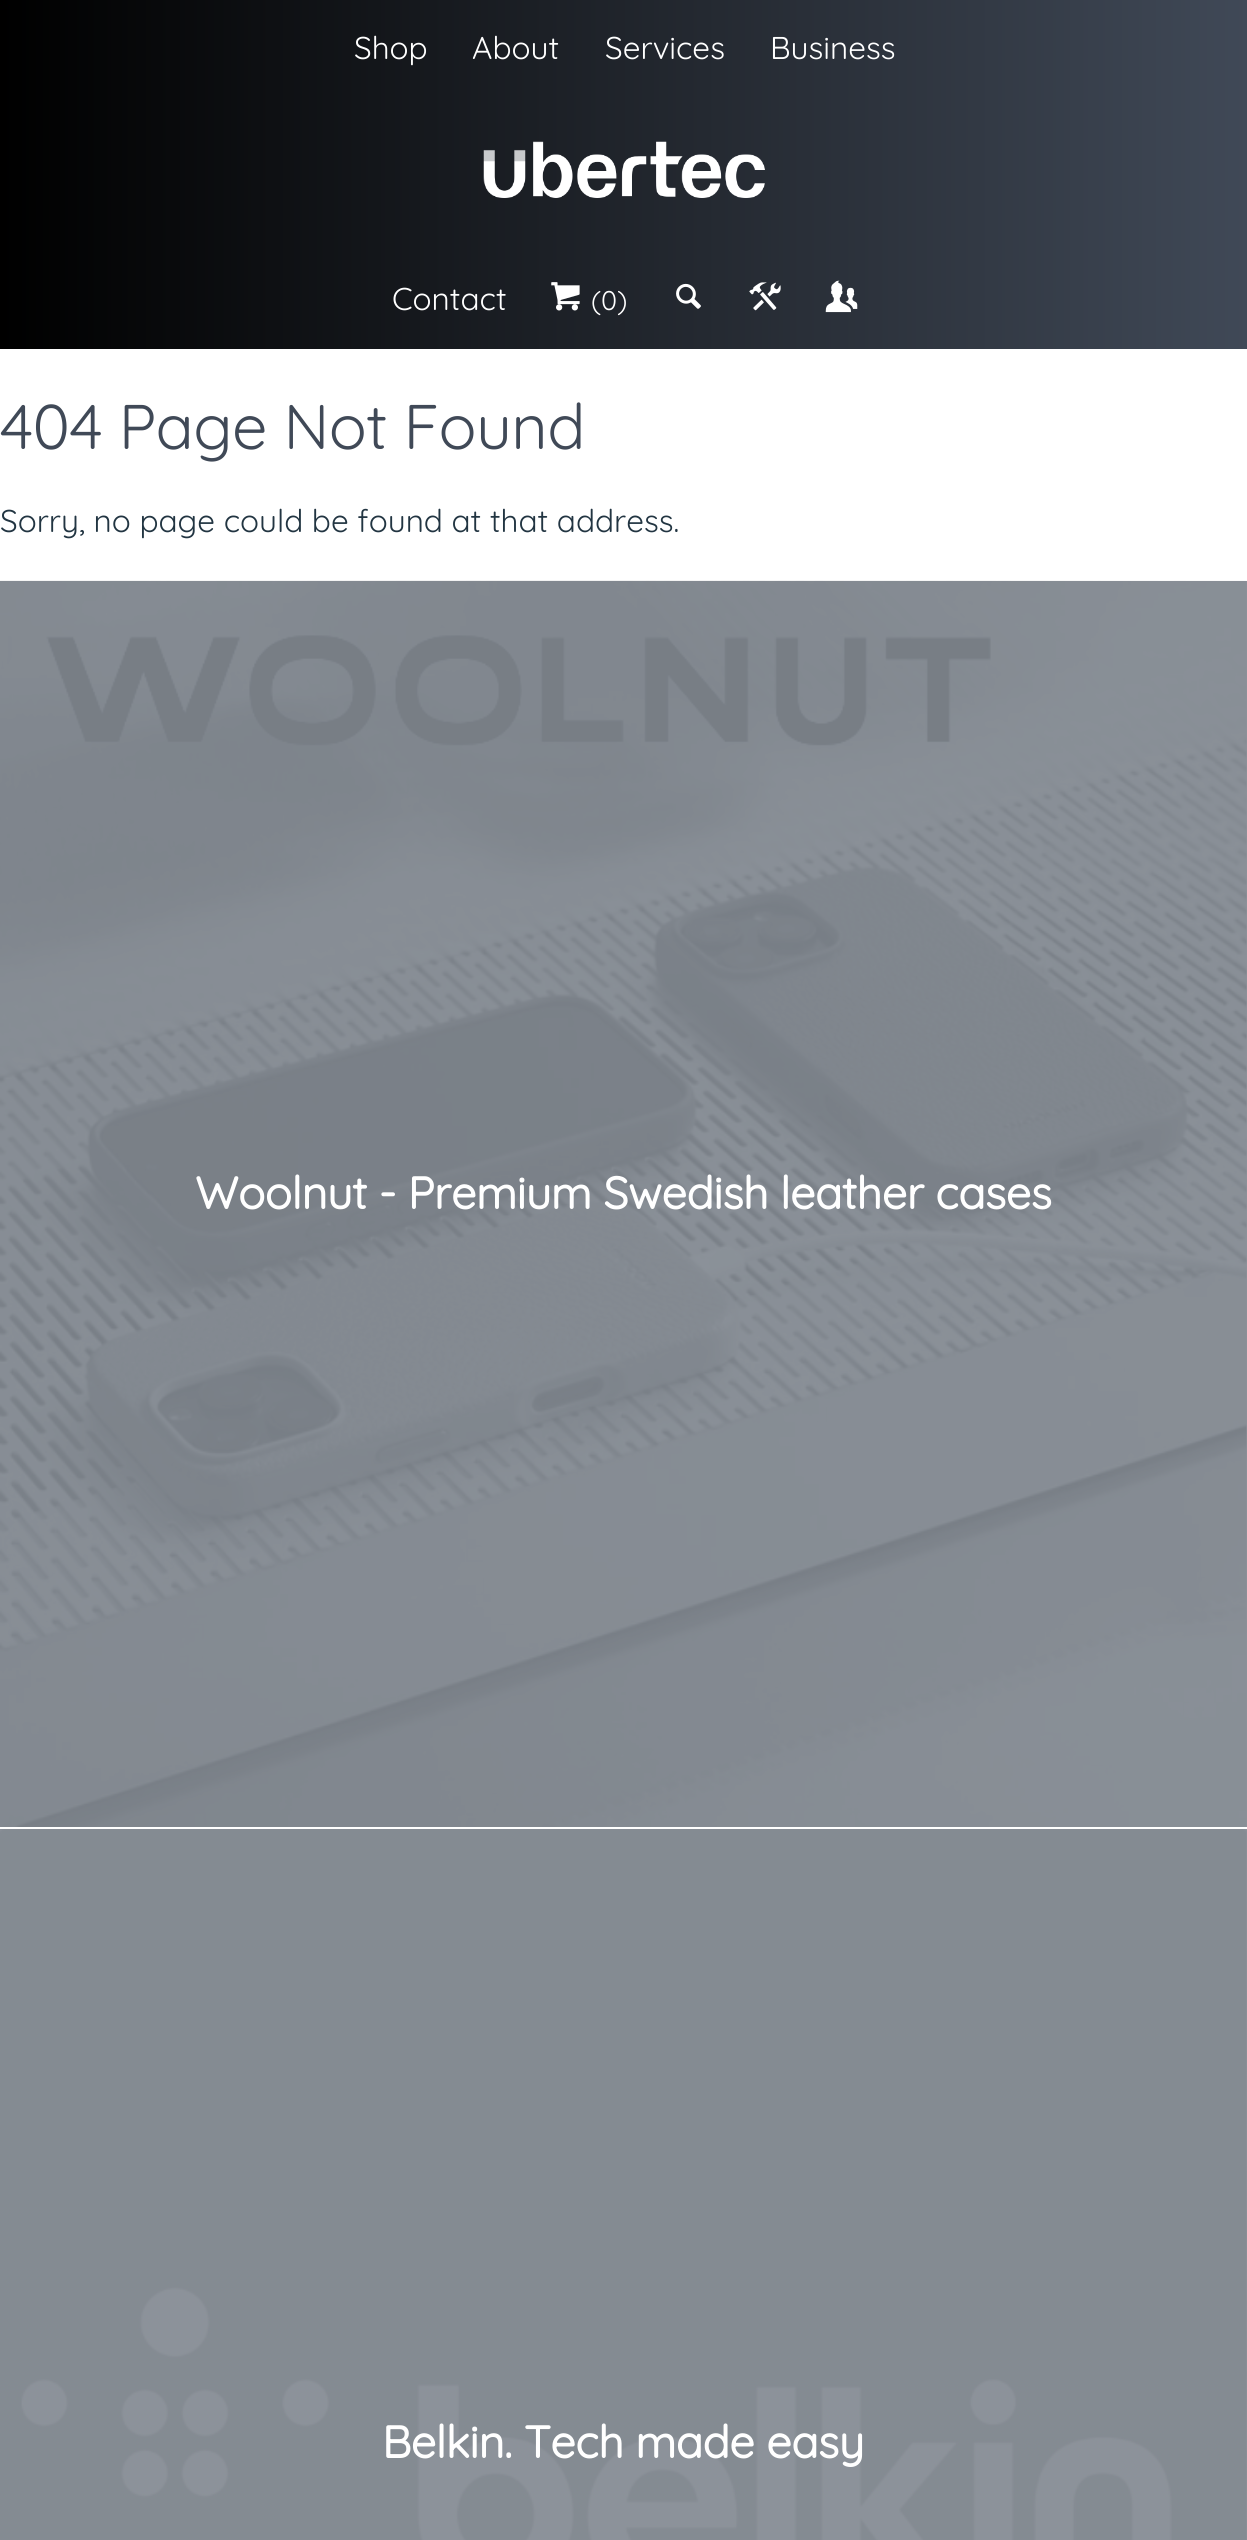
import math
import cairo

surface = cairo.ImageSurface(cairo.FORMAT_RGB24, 1247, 2540)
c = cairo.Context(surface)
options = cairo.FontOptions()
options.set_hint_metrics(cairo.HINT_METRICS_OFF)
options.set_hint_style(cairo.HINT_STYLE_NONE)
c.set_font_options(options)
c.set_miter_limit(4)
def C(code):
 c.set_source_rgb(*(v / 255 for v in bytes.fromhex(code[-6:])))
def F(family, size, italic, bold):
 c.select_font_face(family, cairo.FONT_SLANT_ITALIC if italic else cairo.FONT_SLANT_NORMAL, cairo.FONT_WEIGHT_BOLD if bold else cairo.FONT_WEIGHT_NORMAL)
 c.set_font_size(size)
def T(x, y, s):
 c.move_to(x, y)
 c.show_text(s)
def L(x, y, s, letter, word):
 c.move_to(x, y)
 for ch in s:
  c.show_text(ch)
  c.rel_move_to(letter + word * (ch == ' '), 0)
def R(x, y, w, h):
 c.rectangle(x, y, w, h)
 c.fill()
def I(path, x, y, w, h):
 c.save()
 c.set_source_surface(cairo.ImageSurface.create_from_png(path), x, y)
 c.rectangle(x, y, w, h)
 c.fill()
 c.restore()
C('ffffff')
c.paint()
C('8c929a')
R(0,1829,1247,711)
R(0,581,1247,1246)
gradient = cairo.LinearGradient(0,174,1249,174)
gradient.add_color_stop_rgba(0,0,0,0,1)
gradient.add_color_stop_rgba(1,0.251,0.286,0.341,1)
c.set_source(gradient)
R(0,0,1247,349)
F('Quicksand Light',31.5,0,0)
C('ffffff')
T(354,59,'Shop')
T(472,59,'About')
T(605,59,'Services')
T(770,59,'Business')
I('1.png',483,141,282,57)
T(392,310,'Contact')
I('2.png',551,282,29,29)
F('Quicksand Light',27,0,0)
T(591,310,'(0)')
I('3.png',676,283,25,26)
I('4.png',749,282,32,29)
I('5.png',825,280,33,33)
F('Quicksand Light',63,0,0)
C('404957')
L(0,449,'404 Page Not Found',-.6,0)
F('Quicksand Light',31.5,0,0)
C('223542')
T(0,532,'Sorry, no page could be found at that address.')
I('6.png',0,580,1247,1247)
F('Quicksand',45,0,1)
C('ffffff')
L(195,1209,'Woolnut - Premium Swedish leather cases',-.45,0)
I('7.png',0,1829,1247,711)
L(382,2458,'Belkin. Tech made easy',-.45,0)
surface.write_to_png('o.png')
